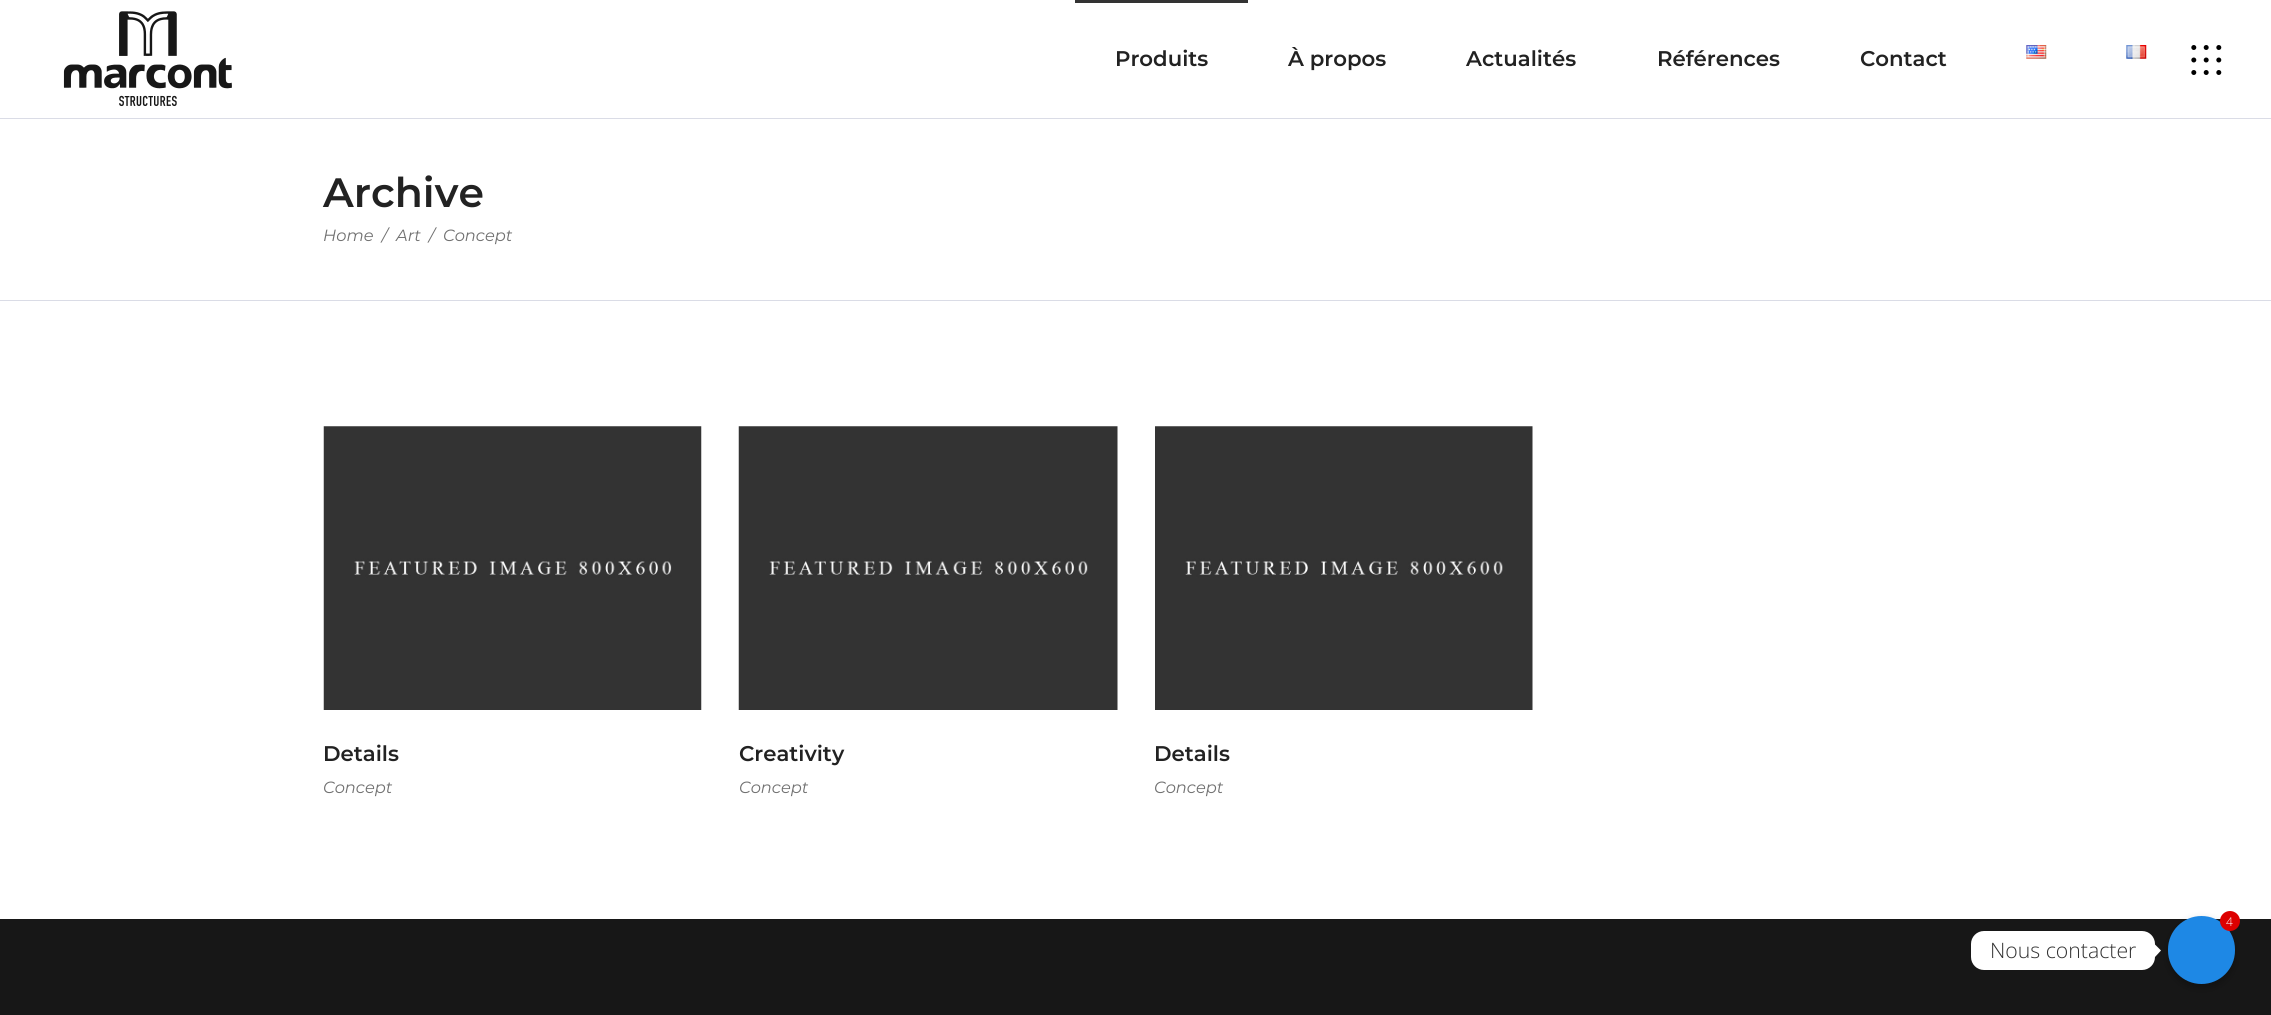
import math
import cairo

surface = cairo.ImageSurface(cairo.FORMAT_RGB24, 2271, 1015)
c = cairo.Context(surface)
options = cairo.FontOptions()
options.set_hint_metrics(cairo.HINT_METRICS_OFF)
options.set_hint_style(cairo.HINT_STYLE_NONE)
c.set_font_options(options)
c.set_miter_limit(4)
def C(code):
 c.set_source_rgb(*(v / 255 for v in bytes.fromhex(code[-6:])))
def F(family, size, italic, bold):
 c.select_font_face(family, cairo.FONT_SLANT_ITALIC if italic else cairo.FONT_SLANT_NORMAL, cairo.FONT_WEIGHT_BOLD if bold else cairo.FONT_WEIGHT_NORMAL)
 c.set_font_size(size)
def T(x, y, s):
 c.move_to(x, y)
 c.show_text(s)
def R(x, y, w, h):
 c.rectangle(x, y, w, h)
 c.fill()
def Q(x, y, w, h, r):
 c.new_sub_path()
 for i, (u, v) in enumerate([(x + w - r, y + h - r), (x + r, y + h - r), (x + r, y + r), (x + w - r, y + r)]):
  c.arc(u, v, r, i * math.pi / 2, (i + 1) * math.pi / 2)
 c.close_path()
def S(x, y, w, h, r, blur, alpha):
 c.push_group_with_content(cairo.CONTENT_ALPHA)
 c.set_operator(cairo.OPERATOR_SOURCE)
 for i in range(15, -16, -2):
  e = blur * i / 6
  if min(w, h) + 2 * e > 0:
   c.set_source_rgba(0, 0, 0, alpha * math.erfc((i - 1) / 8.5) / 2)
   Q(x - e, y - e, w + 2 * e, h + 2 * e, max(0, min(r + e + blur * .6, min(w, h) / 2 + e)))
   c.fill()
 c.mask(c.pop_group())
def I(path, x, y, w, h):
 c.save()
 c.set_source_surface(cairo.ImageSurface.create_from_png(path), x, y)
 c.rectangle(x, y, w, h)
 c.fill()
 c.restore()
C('ffffff')
c.paint()
I('1.png',63,11,169,96)
C('333333')
R(1075,0,173,3)
F('Montserrat SemiBold',21.25,0,0)
C('222222')
T(1115,66,'Produits')
T(1288,66,'À propos')
T(1466,66,'Actualités')
T(1657,66,'Références')
T(1860,66,'Contact')
I('2.png',2026,45,21,14)
I('3.png',2126,45,21,14)
I('4.png',2191,45,31,30)
C('dadce6')
R(0,118,2271,1)
R(0,300,2271,1)
F('Montserrat SemiBold',41,0,0)
C('222222')
T(323,207,'Archive')
F('Montserrat Thin',16.25,1,0)
C('707070')
T(323,241,'Home')
T(382,241,'/')
T(396,241,'Art')
T(429,241,'/')
T(443,241,'Concept')
I('5.png',323,426,379,284)
F('Montserrat SemiBold',21.25,0,0)
C('222222')
T(323,761,'Details')
F('Montserrat Thin',16.25,1,0)
C('707070')
T(323,793,'Concept')
I('6.png',738,426,380,284)
F('Montserrat SemiBold',21.25,0,0)
C('222222')
T(739,761,'Creativity')
F('Montserrat Thin',16.25,1,0)
C('707070')
T(739,793,'Concept')
I('7.png',1155,426,378,284)
F('Montserrat SemiBold',21.25,0,0)
C('222222')
T(1154,761,'Details')
F('Montserrat Thin',16.25,1,0)
C('707070')
T(1154,793,'Concept')
C('171717')
R(0,919,2271,96)
C('000000')
S(2168,920,67,68,33.5,4,.25)
C('1e88e5')
Q(2168,916,67,68,33.5)
c.fill()
C('dd0000')
c.arc(2230,921,10,0,2 * math.pi)
c.fill()
F('Open Sans Light',12,0,0)
C('ffffff')
T(2226,926,'4')
Q(1971,931,184,39,13)
c.fill()
F('Open Sans Light',21.25,0,0)
C('333333')
T(1990,958,'Nous contacter')
C('ffffff')
c.new_path()
c.move_to(2155,957)
c.line_to(2155,944.5)
c.line_to(2161,950.5)
c.close_path()
c.fill()
surface.write_to_png('o.png')
